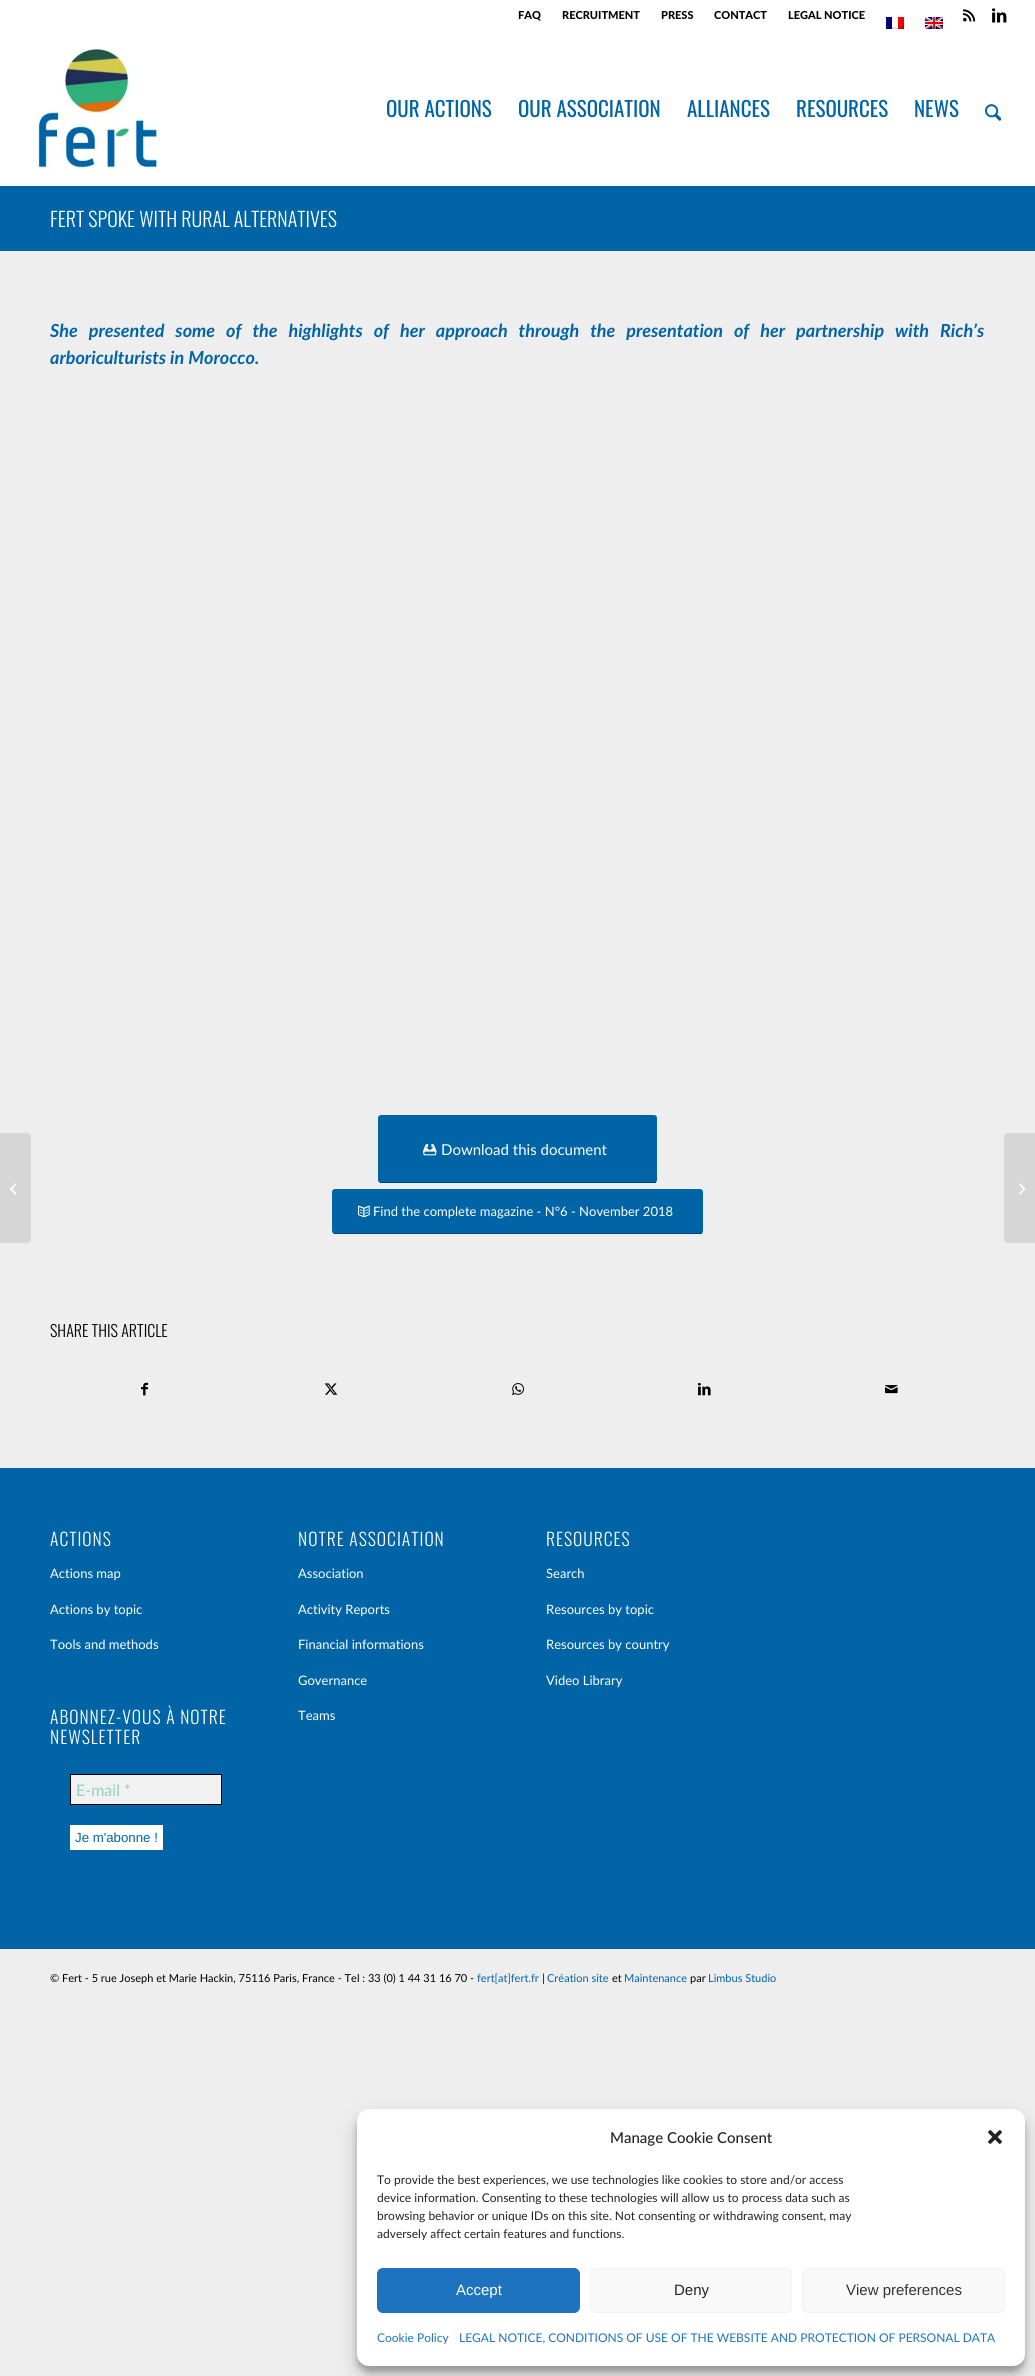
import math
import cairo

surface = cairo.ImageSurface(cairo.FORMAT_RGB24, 1035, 2376)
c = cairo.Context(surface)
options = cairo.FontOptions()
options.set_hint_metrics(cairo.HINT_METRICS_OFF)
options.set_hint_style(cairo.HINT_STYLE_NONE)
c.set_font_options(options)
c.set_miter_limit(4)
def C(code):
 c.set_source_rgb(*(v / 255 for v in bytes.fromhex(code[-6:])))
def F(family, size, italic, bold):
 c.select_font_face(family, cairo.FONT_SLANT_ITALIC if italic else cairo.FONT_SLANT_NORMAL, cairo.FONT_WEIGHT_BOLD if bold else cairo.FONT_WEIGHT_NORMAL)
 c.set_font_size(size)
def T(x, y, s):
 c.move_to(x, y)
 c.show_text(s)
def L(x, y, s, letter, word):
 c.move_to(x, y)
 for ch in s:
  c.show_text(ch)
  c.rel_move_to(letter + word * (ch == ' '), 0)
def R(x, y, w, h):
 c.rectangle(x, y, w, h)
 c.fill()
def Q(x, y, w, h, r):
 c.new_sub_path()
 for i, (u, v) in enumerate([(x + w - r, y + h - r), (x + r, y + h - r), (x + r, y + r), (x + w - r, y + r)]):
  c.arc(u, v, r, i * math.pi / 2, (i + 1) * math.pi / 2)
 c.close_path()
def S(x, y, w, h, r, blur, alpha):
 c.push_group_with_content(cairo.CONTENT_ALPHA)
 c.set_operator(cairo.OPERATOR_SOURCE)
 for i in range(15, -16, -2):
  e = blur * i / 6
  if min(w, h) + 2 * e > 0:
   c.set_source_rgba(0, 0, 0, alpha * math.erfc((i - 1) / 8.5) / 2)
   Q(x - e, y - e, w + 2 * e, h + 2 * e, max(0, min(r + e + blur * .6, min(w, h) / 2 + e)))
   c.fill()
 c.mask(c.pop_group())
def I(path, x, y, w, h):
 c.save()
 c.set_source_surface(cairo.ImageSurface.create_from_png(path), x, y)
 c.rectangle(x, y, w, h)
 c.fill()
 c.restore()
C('eeeeee')
c.paint()
C('ffffff')
R(0,0,1035,186)
F('Lato Black',11,0,0)
C('000000')
T(518,19,'FAQ')
T(562,19,'RECRUITMENT')
T(661,19,'PRESS')
T(714,19,'CONTACT')
T(788,19,'LEGAL NOTICE')
I('1.png',886,17,18,12)
I('2.png',925,17,18,12)
I('3.png',963,9,13,13)
I('4.png',992,8,15,15)
I('5.png',37,49,122,122)
F('Oswald',21,0,0)
C('0064a6')
T(386,117,'OUR ACTIONS')
T(518,117,'OUR ASSOCIATION')
T(687,117,'ALLIANCES')
T(796,117,'RESOURCES')
T(914,117,'NEWS')
I('6.png',985,104,16,17)
C('d6d6d6')
c.new_path()
c.move_to(0,1133)
c.line_to(27,1133)
c.curve_to(29,1133,31,1135,31,1137)
c.line_to(31,1239)
c.curve_to(31,1241,29,1243,27,1243)
c.line_to(0,1243)
c.close_path()
c.fill()
I('7.png',10,1183,6,12)
C('0064a6')
R(0,186,1035,65)
F('Oswald Light',20,0,0)
C('ffffff')
T(50,227,'FERT SPOKE WITH RURAL ALTERNATIVES')
F('Lato',18,1,1)
C('0064a6')
L(50,337,'She presented some of the highlights of her approach through the presentation of her partnership with Rich’s',0,7)
T(50,364,'arboriculturists in Morocco.')
Q(378,1115,279,68,3)
c.fill()
C('004284')
R(380,1182,276,1)
I('8.png',423,1144,14,12)
F('Lato',15,0,0)
C('ffffff')
T(441,1155,'Download this document')
C('0064a6')
Q(332,1189,371,45,3)
c.fill()
C('004284')
R(334,1233,368,1)
I('9.png',358,1205,12,13)
F('Lato',13,0,0)
C('ffffff')
T(373,1216,'Find the complete magazine - N°6 - November 2018')
F('Oswald Light',16,0,0)
C('000000')
T(50,1337,'SHARE THIS ARTICLE')
I('10.png',141,1382,7,14)
I('11.png',324,1383,14,12)
I('12.png',512,1383,12,13)
I('13.png',698,1382,13,14)
I('14.png',885,1385,13,9)
C('0064a6')
R(0,1468,1035,481)
F('Oswald Light',17.6,0,0)
C('ffffff')
L(50,1546,'ACTIONS',1,0)
F('Lato',13,0,0)
T(50,1578,'Actions map')
T(50,1614,'Actions by topic')
T(50,1649,'Tools and methods')
F('Oswald Light',17.6,0,0)
L(50,1724,'ABONNEZ-VOUS À NOTRE',1,0)
L(50,1744,'NEWSLETTER',1,0)
C('f1f1f1')
c.rectangle(70.5,1774.5,151,30)
c.fill_preserve()
C('000000')
c.set_line_width(1)
c.stroke()
F('Lato',16,0,0)
C('94d0b7')
T(76,1796,'E-mail *')
C('ffffff')
R(70,1825,93,25)
F('Liberation Sans',13.25,0,0)
C('0064a6')
T(75,1842,'Je m\'abonne !')
F('Oswald Light',17.6,0,0)
C('ffffff')
L(298,1546,'NOTRE ASSOCIATION',1,0)
F('Lato',13,0,0)
T(298,1578,'Association')
T(298,1614,'Activity Reports')
T(298,1649,'Financial informations')
T(298,1685,'Governance')
T(298,1720,'Teams')
F('Oswald Light',17.6,0,0)
L(546,1546,'RESOURCES',1,0)
F('Lato',13,0,0)
T(546,1578,'Search')
T(546,1614,'Resources by topic')
T(546,1649,'Resources by country')
T(546,1685,'Video Library')
F('Lato',11,0,0)
C('000000')
T(50,1982,'© Fert - 5 rue Joseph et Marie Hackin, 75116 Paris, France - Tel : 33 (0) 1 44 31 16 70 -')
C('0064a6')
T(477,1982,'fert[at]fert.fr')
C('000000')
T(542,1982,'|')
C('0064a6')
T(547,1982,'Création site')
C('000000')
T(612,1982,'et')
C('0064a6')
T(624,1982,'Maintenance')
C('000000')
T(690,1982,'par')
C('0064a6')
T(708,1982,'Limbus Studio')
C('d6d6d6')
c.new_path()
c.move_to(1008,1133)
c.line_to(1035,1133)
c.line_to(1035,1243)
c.line_to(1008,1243)
c.curve_to(1006,1243,1004,1241,1004,1239)
c.line_to(1004,1137)
c.curve_to(1004,1135,1006,1133,1008,1133)
c.close_path()
c.fill()
I('15.png',1019,1183,6,12)
C('000000')
S(357,2115,668,257,12,3,.23)
S(357,2119,668,257,12,10,.19)
C('ffffff')
Q(357,2109,668,257,12)
c.fill()
F('Lato Medium',15,0,0)
C('222222')
T(610,2143,'Manage Cookie Consent')
I('16.png',988,2130,14,14)
F('Lato',12,0,0)
T(377,2184,'To provide the best experiences, we use technologies like cookies to store and/or access')
T(377,2202,'device information. Consenting to these technologies will allow us to process data such as')
T(377,2220,'browsing behavior or unique IDs on this site. Not consenting or withdrawing consent, may')
T(377,2238,'adversely affect certain features and functions.')
C('1e73be')
Q(377.5,2268.5,202,44,5.5)
c.fill_preserve()
c.stroke()
F('Liberation Sans',15,0,0)
C('ffffff')
T(456,2295,'Accept')
C('f9f9f9')
Q(590.5,2268.5,201,44,5.5)
c.fill_preserve()
C('f2f2f2')
c.stroke()
C('222222')
T(674,2295,'Deny')
C('f9f9f9')
Q(802.5,2268.5,202,44,5.5)
c.fill_preserve()
C('f2f2f2')
c.stroke()
C('333333')
T(846,2295,'View preferences')
F('Lato',12,0,0)
C('1e73be')
T(377,2342,'Cookie Policy')
T(459,2342,'LEGAL NOTICE, CONDITIONS OF USE OF THE WEBSITE AND PROTECTION OF PERSONAL DATA')
surface.write_to_png('o.png')
